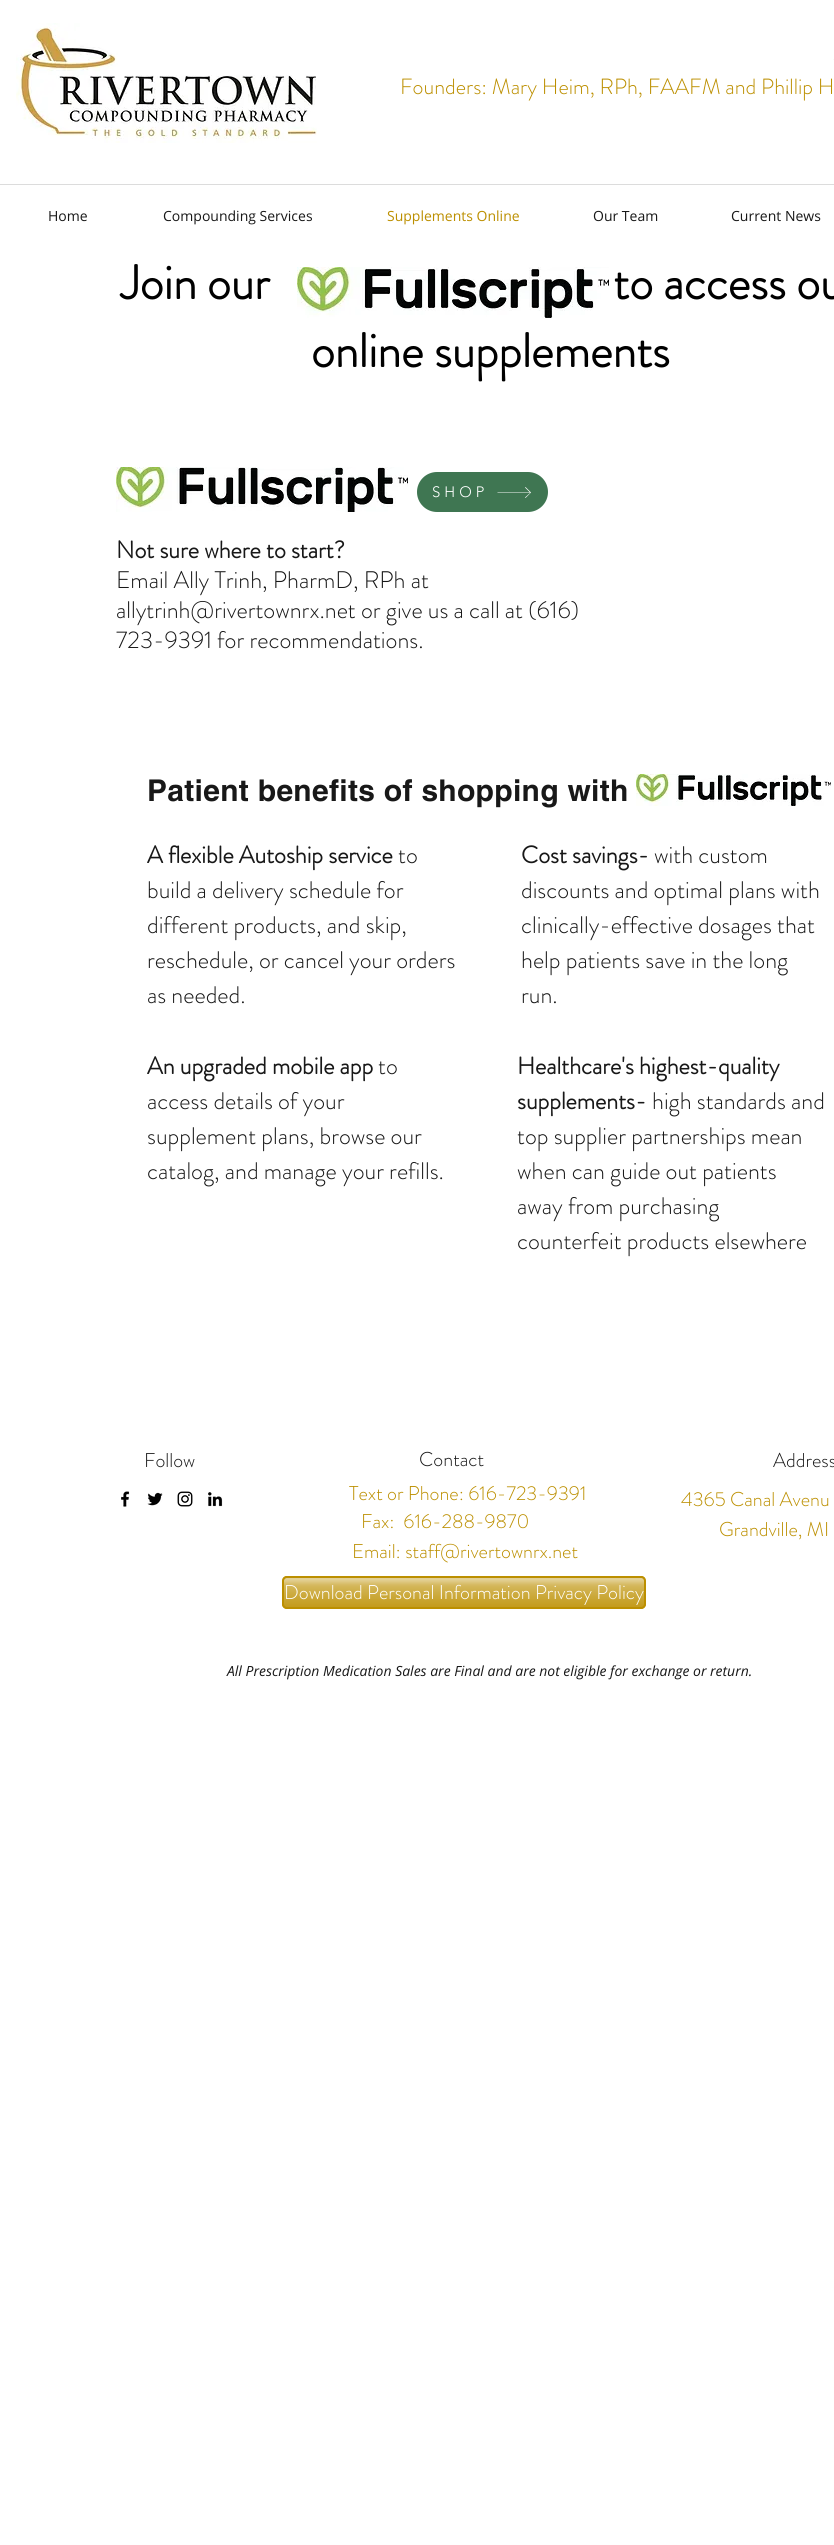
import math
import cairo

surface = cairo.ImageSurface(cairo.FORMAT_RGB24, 834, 2545)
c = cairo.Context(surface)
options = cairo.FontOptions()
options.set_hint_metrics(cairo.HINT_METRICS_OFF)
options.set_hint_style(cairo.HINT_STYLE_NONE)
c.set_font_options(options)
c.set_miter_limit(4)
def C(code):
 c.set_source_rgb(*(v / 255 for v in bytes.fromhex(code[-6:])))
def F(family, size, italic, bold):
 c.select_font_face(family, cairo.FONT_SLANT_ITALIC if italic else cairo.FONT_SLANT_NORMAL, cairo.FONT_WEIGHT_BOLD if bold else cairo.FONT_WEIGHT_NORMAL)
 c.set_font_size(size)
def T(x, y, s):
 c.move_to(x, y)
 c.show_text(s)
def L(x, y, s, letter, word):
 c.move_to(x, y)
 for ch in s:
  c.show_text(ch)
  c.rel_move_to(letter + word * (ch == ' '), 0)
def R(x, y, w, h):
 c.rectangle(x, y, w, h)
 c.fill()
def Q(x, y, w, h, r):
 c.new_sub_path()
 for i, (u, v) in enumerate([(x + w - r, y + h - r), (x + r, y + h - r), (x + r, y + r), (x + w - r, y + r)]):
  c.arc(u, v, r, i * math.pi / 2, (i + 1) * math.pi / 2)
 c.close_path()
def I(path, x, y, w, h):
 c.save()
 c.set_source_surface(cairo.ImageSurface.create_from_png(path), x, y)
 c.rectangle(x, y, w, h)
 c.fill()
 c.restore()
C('ffffff')
c.paint()
I('1.png',16,23,301,120)
C('fafafa')
R(833,59,1,1)
F('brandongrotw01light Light',22,0,0)
C('bc8f00')
T(400,94,'Founders: Mary Heim, RPh, FAAFM and Phillip H')
C('dcdcdc')
R(0,184,834,1)
F('Open Sans',14,0,0)
C('181818')
T(48,221,'Home')
T(163,221,'Compounding Services')
C('bc8f00')
T(387,221,'Supplements Online')
C('181818')
T(593,221,'Our Team')
T(731,221,'Current News')
F('brandongrotw01light',48,0,1)
C('000000')
T(121,299,'Join our                                 to access ou')
T(311,367,'online supplements')
I('2.png',297,267,312,51)
I('3.png',116,467,292,45)
C('3f7652')
Q(417,472,131,40,20)
c.fill()
F('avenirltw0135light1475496 Light',15,0,0)
C('ffffff')
L(432,497,'SHOP',4,0)
c.new_path()
c.move_to(525.5,487)
c.line_to(525,487.5)
c.line_to(530,492.5)
c.line_to(497.5,492.5)
c.line_to(497.5,493)
c.line_to(530,493)
c.line_to(525,497.5)
c.line_to(525.5,498)
c.line_to(531,492.5)
c.close_path()
c.fill()
F('brandongrotw01light',24,0,1)
C('181818')
T(116,558,'Not sure where to start?')
F('brandongrotw01light Light',24,0,0)
T(116,588,'Email Ally Trinh, PharmD, RPh at')
T(116,618,'allytrinh@rivertownrx.net or give us a call at (616)')
T(116,648,'723-9391 for recommendations.')
F('helvetica',30,0,1)
L(147,801,'Patient benefits of shopping with',.3,0)
I('4.png',636,774,195,32)
F('brandongrotw01light',24,0,1)
T(147,863,'A flexible Autoship service')
F('brandongrotw01light Light',24,0,0)
T(398,863,'to')
T(147,898,'build a delivery schedule for')
T(147,933,'different products, and skip,')
T(147,968,'reschedule, or cancel your orders')
T(147,1003,'as needed.')
F('brandongrotw01light',24,0,1)
T(521,863,'Cost savings-')
F('brandongrotw01light Light',24,0,0)
T(654,863,'with custom')
T(521,898,'discounts and optimal plans with')
T(521,933,'clinically-effective dosages that')
T(521,968,'help patients save in the long')
T(521,1003,'run.')
F('brandongrotw01light',24,0,1)
T(147,1074,'An upgraded mobile app')
F('brandongrotw01light Light',24,0,0)
T(378,1074,'to')
T(147,1109,'access details of your')
T(147,1144,'supplement plans, browse our')
T(147,1179,'catalog, and manage your refills.')
F('brandongrotw01light',24,0,1)
T(517,1074,'Healthcare\'s highest-quality')
T(517,1109,'supplements-')
F('brandongrotw01light Light',24,0,0)
T(652,1109,'high standards and')
T(517,1144,'top supplier partnerships mean')
T(517,1179,'when can guide out patients')
T(517,1214,'away from purchasing')
T(517,1249,'counterfeit products elsewhere')
F('brandongrotw01light Light',20,0,0)
T(144,1467,'Follow')
T(419,1466,'Contact')
T(773,1467,'Address')
I('5.png',121,1491,9,16)
I('6.png',147,1492,16,14)
I('7.png',177,1491,16,16)
I('8.png',208,1492,15,15)
C('bc8f00')
T(349,1500,'Text or Phone: 616-723-9391')
T(681,1506,'4365 Canal Avenu')
T(719,1536,'Grandville, MI')
T(361,1528,'Fax:  616-288-9870')
T(352,1558,'Email: staff@rivertownrx.net')
Q(282,1576,364,33,5)
c.fill()
I('9.png',282,1578,364,31)
Q(283,1577,362,31,4)
c.stroke()
C('ffffff')
T(284,1599,'Download Personal Information Privacy Policy')
F('Open Sans',14,1,0)
C('181818')
T(227,1676,'All Prescription Medication Sales are Final and are not eligible for exchange or return.')
surface.write_to_png('o.png')
